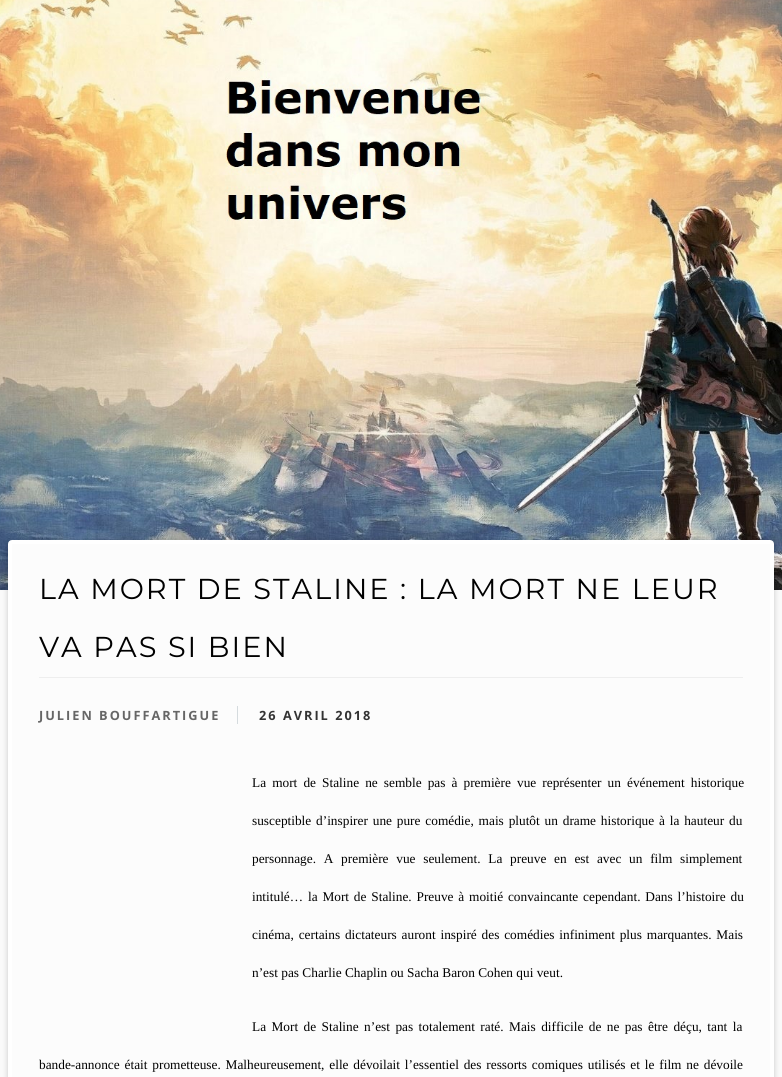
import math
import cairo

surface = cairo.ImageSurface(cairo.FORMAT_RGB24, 782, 1077)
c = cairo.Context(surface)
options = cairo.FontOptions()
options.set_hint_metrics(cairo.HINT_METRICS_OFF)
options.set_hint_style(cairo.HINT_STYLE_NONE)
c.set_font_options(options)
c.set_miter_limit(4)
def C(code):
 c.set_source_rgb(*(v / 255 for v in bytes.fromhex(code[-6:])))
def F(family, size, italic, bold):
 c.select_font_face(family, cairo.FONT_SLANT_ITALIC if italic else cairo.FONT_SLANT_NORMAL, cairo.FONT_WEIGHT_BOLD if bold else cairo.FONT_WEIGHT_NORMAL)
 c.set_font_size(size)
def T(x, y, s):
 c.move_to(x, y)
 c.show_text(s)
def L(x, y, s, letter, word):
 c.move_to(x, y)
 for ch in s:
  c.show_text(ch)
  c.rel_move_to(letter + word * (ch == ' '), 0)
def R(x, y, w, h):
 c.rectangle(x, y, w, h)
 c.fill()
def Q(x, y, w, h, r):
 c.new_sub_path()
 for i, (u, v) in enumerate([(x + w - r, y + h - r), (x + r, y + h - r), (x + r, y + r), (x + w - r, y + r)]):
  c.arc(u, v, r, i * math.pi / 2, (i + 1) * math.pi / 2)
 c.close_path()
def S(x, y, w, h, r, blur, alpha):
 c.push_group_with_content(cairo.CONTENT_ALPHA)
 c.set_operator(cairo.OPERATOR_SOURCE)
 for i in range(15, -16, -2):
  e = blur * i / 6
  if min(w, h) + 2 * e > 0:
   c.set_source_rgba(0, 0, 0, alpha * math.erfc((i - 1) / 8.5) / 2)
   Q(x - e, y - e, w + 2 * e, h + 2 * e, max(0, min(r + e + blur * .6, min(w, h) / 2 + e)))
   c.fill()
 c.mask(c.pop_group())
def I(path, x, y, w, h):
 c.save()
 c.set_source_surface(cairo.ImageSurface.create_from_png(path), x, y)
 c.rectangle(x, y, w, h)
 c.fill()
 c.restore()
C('fafafa')
c.paint()
I('1.png',0,0,782,590)
C('000000')
S(8,541,766,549,4,3,.2)
C('fcfcfc')
Q(10,542,762,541,2)
c.fill_preserve()
C('ffffff')
c.set_line_width(4)
c.stroke()
C('eeeeee')
R(39,677,704,1)
F('Montserrat Thin',28.8,0,0)
C('000000')
L(39,599,'LA MORT DE STALINE : LA MORT NE LEUR',2,0)
L(39,657,'VA PAS SI BIEN',2,0)
F('Open Sans',12.75,0,1)
C('666666')
L(39,720,'JULIEN BOUFFARTIGUE',2,0)
C('333333')
L(259,720,'26 AVRIL 2018',2,0)
C('d5dbde')
R(237,706,1,18)
F('Liberation Serif',13.33,0,0)
C('000000')
L(252,787,'La mort de Staline ne semble pas à première vue représenter un événement historique',0,2.75)
L(252,825,'susceptible d’inspirer une pure comédie, mais plutôt un drame historique à la hauteur du',0,1.5)
L(252,863,'personnage. A première vue seulement. La preuve en est avec un film simplement',0,4.4)
L(252,901,'intitulé… la Mort de Staline. Preuve à moitié convaincante cependant. Dans l’histoire du',0,1.5)
L(252,939,'cinéma, certains dictateurs auront inspiré des comédies infiniment plus marquantes. Mais',0,1.5)
T(252,977,'n’est pas Charlie Chaplin ou Sacha Baron Cohen qui veut.')
L(252,1031,'La Mort de Staline n’est pas totalement raté. Mais difficile de ne pas être déçu, tant la',0,2.1)
L(39,1069,'bande-annonce était prometteuse. Malheureusement, elle dévoilait l’essentiel des ressorts comiques utilisés et le film ne dévoile',0,1.5)
surface.write_to_png('o.png')
